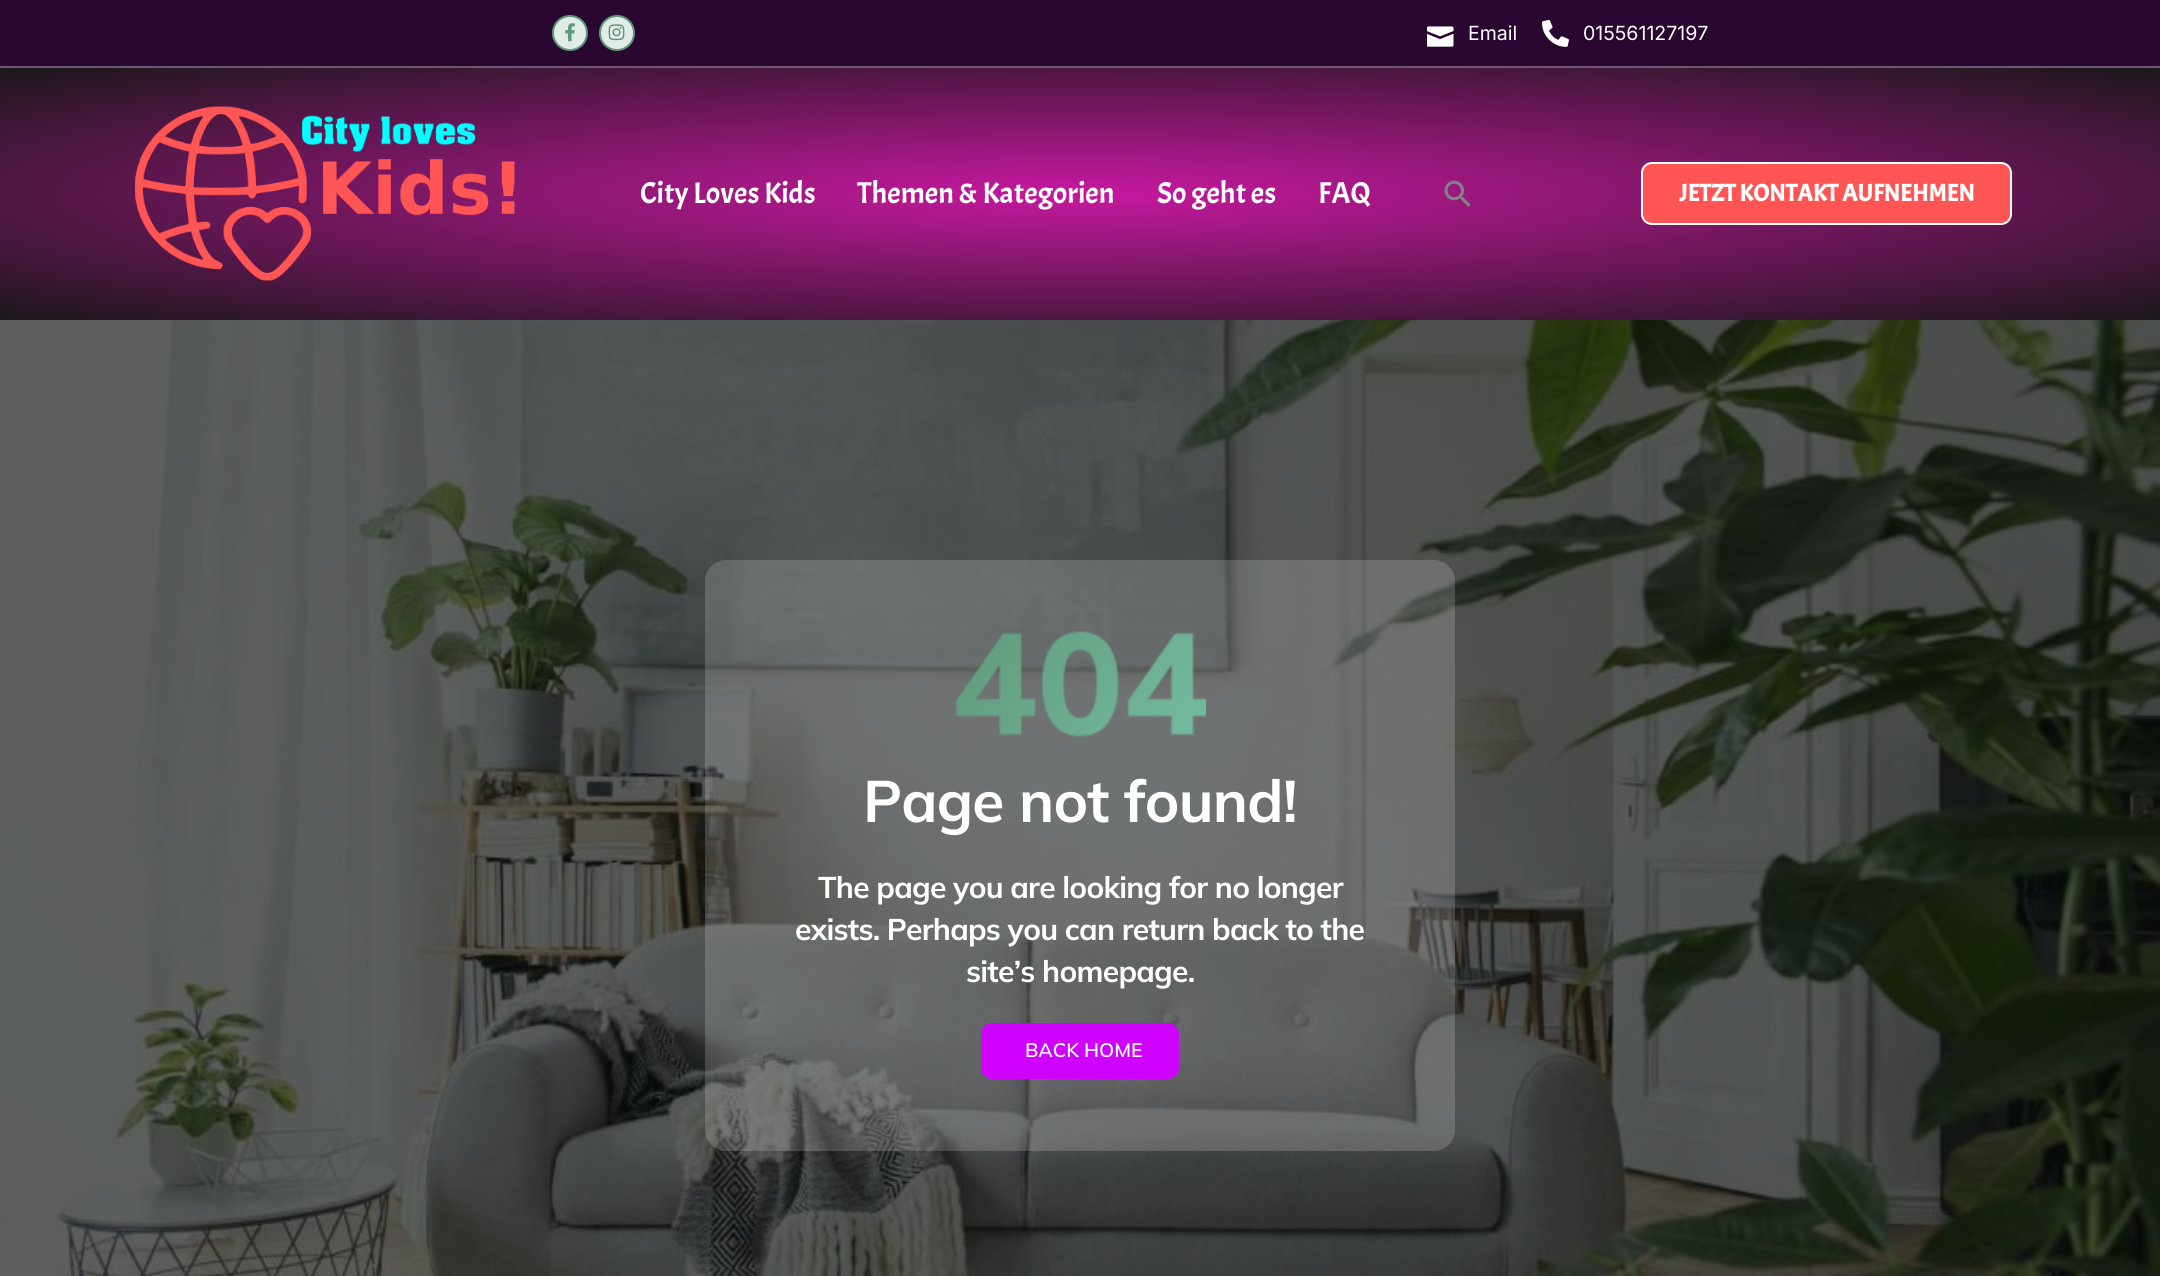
import math
import cairo

surface = cairo.ImageSurface(cairo.FORMAT_RGB24, 2160, 1276)
c = cairo.Context(surface)
options = cairo.FontOptions()
options.set_hint_metrics(cairo.HINT_METRICS_OFF)
options.set_hint_style(cairo.HINT_STYLE_NONE)
c.set_font_options(options)
c.set_miter_limit(4)
def C(code):
 c.set_source_rgb(*(v / 255 for v in bytes.fromhex(code[-6:])))
def F(family, size, italic, bold):
 c.select_font_face(family, cairo.FONT_SLANT_ITALIC if italic else cairo.FONT_SLANT_NORMAL, cairo.FONT_WEIGHT_BOLD if bold else cairo.FONT_WEIGHT_NORMAL)
 c.set_font_size(size)
def T(x, y, s):
 c.move_to(x, y)
 c.show_text(s)
def L(x, y, s, letter, word):
 c.move_to(x, y)
 for ch in s:
  c.show_text(ch)
  c.rel_move_to(letter + word * (ch == ' '), 0)
def R(x, y, w, h):
 c.rectangle(x, y, w, h)
 c.fill()
def Q(x, y, w, h, r):
 c.new_sub_path()
 for i, (u, v) in enumerate([(x + w - r, y + h - r), (x + r, y + h - r), (x + r, y + r), (x + w - r, y + r)]):
  c.arc(u, v, r, i * math.pi / 2, (i + 1) * math.pi / 2)
 c.close_path()
def I(path, x, y, w, h):
 c.save()
 c.set_source_surface(cairo.ImageSurface.create_from_png(path), x, y)
 c.rectangle(x, y, w, h)
 c.fill()
 c.restore()
C('290730')
c.paint()
C('6d5672')
R(0,66,2160,2)
C('e1ece7')
c.arc(570,33,17,0,2 * math.pi)
c.fill_preserve()
C('5e9779')
c.stroke()
I('1.png',565,23,10,19)
C('e1ece7')
c.arc(617,33,17,0,2 * math.pi)
c.fill_preserve()
C('5e9779')
c.stroke()
I('2.png',608,24,17,17)
I('3.png',1427,26,27,21)
F('Inter',19.5,0,0)
C('ffffff')
T(1468,40,'Email')
I('4.png',1542,19,27,28)
T(1583,40,'015561127197')
gradient = cairo.RadialGradient(0,0,0,0,0,1)
gradient.set_matrix(cairo.Matrix(1 / 1527, 0, 0, 1 / 178, -1 * 1080 / 1527, -1 * 194 / 178))
gradient.add_color_stop_rgba(0,0.78,0.094,0.624,1)
gradient.add_color_stop_rgba(1,0.106,0.09,0.106,1)
c.set_source(gradient)
R(0,68,2160,252)
I('5.png',135,106,380,175)
F('Acme',30,0,0)
C('ffffff')
T(640,203,'City Loves Kids')
T(857,203,'Themen & Kategorien')
T(1157,203,'So geht es')
T(1318,203,'FAQ')
I('6.png',1444,180,27,27)
C('ff5555')
Q(1642,163,369,61,10)
c.fill_preserve()
C('ffffff')
c.stroke()
F('Acme',24,0,1)
T(1679,201,'JETZT KONTAKT AUFNEHMEN')
I('7.png',0,320,2160,956)
c.set_source_rgba(1,1,1,0.17)
Q(705,560,750,591,21)
c.fill()
I('8.png',955,631,251,106)
F('Mulish',58.5,0,1)
C('ffffff')
L(863,822,'Page not found!',-.75,0)
F('Mulish',30,0,1)
L(818,898,'The page you are looking for no longer',-.75,0)
L(795,940,'exists. Perhaps you can return back to the',-.75,0)
L(966,982,'site’s homepage.',-.75,0)
C('d002ff')
Q(981,1023,198,56,11)
c.fill()
F('Mulish SemiBold',19.5,0,0)
C('ffffff')
T(1025,1057,'BACK HOME')
surface.write_to_png('o.png')
